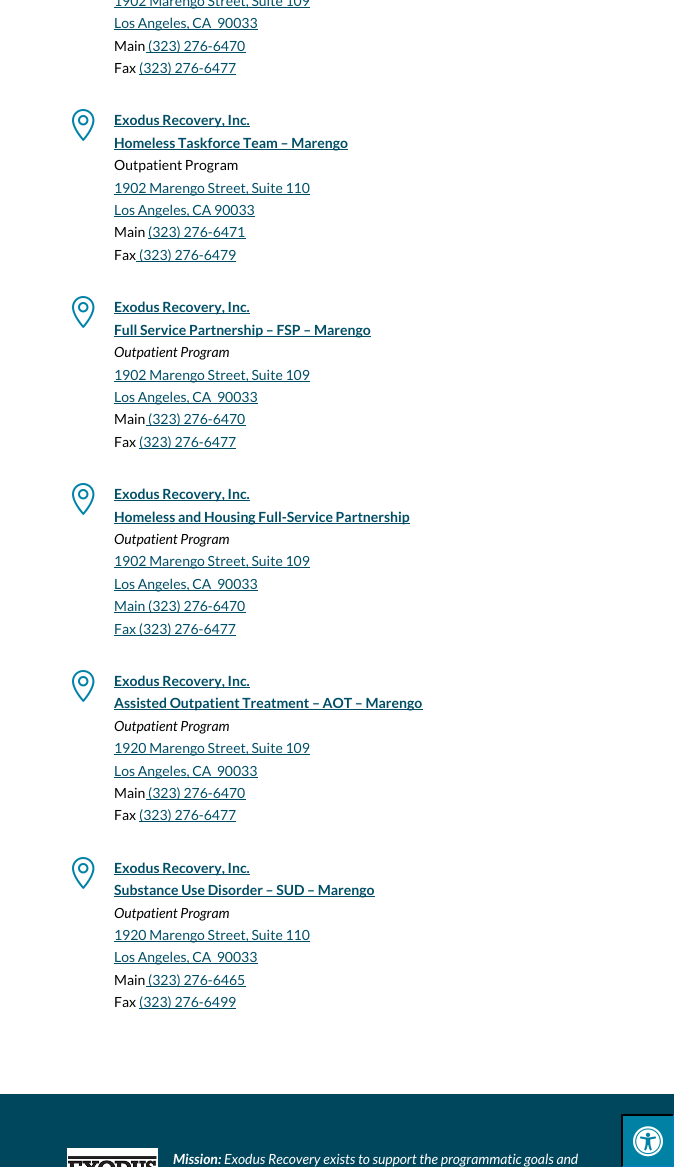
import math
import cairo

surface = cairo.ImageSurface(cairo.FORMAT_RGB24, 674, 1167)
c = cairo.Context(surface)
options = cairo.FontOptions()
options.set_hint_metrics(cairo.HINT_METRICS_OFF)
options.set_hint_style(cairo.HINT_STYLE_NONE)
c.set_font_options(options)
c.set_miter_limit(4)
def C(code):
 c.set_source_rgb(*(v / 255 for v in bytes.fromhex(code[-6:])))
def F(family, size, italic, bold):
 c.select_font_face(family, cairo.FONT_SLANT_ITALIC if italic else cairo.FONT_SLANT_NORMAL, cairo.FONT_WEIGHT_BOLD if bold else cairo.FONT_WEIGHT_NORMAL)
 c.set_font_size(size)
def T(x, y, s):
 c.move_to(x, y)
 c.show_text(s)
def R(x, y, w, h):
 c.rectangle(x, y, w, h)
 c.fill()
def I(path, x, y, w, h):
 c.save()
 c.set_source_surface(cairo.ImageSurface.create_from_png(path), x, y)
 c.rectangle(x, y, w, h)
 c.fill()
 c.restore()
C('00465c')
c.paint()
C('ffffff')
R(0,0,674,1094)
C('004e66')
R(114,7,196,1)
F('Lato',14,0,0)
T(114,6,'1902 Marengo Street, Suite 109')
R(114,29,144,1)
T(114,28,'Los Angeles, CA')
T(217,28,'90033')
C('000000')
T(114,51,'Main')
C('004e66')
R(146,52,100,1)
T(148,51,'(323) 276-6470')
C('000000')
T(114,73,'Fax')
C('004e66')
R(139,74,97,1)
T(139,73,'(323) 276-6477')
I('1.png',72,109,23,32)
R(114,126,136,1)
F('Lato',14,0,1)
T(114,125,'Exodus Recovery, Inc.')
R(114,149,234,1)
T(114,148,'Homeless Taskforce Team – Marengo')
F('Lato',14,0,0)
C('000000')
T(114,170,'Outpatient Program')
C('004e66')
R(114,194,196,1)
T(114,193,'1902 Marengo Street, Suite 110')
R(114,216,141,1)
T(114,215,'Los Angeles, CA 90033')
C('000000')
T(114,237,'Main')
C('004e66')
R(148,238,98,1)
T(148,237,'(323) 276-6471')
C('000000')
T(114,260,'Fax')
C('004e66')
R(136,261,100,1)
T(139,260,'(323) 276-6479')
I('1.png',72,296,23,32)
R(114,313,136,1)
F('Lato',14,0,1)
T(114,312,'Exodus Recovery, Inc.')
R(114,336,257,1)
T(114,335,'Full Service Partnership – FSP – Marengo')
F('Lato',14,1,0)
C('000000')
T(114,357,'Outpatient Program')
C('004e66')
R(114,381,196,1)
F('Lato',14,0,0)
T(114,380,'1902 Marengo Street, Suite 109')
R(114,403,144,1)
T(114,402,'Los Angeles, CA')
T(217,402,'90033')
C('000000')
T(114,424,'Main')
C('004e66')
R(146,425,100,1)
T(148,424,'(323) 276-6470')
C('000000')
T(114,447,'Fax')
C('004e66')
R(139,448,97,1)
T(139,447,'(323) 276-6477')
I('1.png',72,483,23,32)
R(114,500,136,1)
F('Lato',14,0,1)
T(114,499,'Exodus Recovery, Inc.')
R(114,523,296,1)
T(114,522,'Homeless and Housing Full-Service Partnership')
F('Lato',14,1,0)
C('000000')
T(114,544,'Outpatient Program')
C('004e66')
R(114,567,196,1)
F('Lato',14,0,0)
T(114,566,'1902 Marengo Street, Suite 109')
R(114,590,144,1)
T(114,589,'Los Angeles, CA')
T(217,589,'90033')
R(114,612,132,1)
T(114,611,'Main (323) 276-6470')
R(114,635,122,1)
T(114,634,'Fax (323) 276-6477')
I('1.png',72,670,23,32)
R(114,687,136,1)
F('Lato',14,0,1)
T(114,686,'Exodus Recovery, Inc.')
R(114,709,309,1)
T(114,708,'Assisted Outpatient Treatment – AOT – Marengo')
F('Lato',14,1,0)
C('000000')
T(114,731,'Outpatient Program')
C('004e66')
R(114,754,196,1)
F('Lato',14,0,0)
T(114,753,'1920 Marengo Street, Suite 109')
R(114,777,144,1)
T(114,776,'Los Angeles, CA  90033')
C('000000')
T(114,798,'Main')
C('004e66')
R(146,799,100,1)
T(148,798,'(323) 276-6470')
C('000000')
T(114,820,'Fax')
C('004e66')
R(139,821,97,1)
T(139,820,'(323) 276-6477')
I('1.png',72,857,23,32)
R(114,874,136,1)
F('Lato',14,0,1)
T(114,873,'Exodus Recovery, Inc.')
R(114,896,261,1)
T(114,895,'Substance Use Disorder – SUD – Marengo')
F('Lato',14,1,0)
C('000000')
T(114,918,'Outpatient Program')
C('004e66')
R(114,941,196,1)
F('Lato',14,0,0)
T(114,940,'1920 Marengo Street, Suite 110')
R(114,963,144,1)
T(114,962,'Los Angeles, CA  90033')
C('000000')
T(114,985,'Main')
C('004e66')
R(146,986,100,1)
T(148,985,'(323) 276-6465')
C('000000')
T(114,1007,'Fax')
C('004e66')
R(139,1008,97,1)
T(139,1007,'(323) 276-6499')
I('2.png',67,1148,91,19)
F('Lato',14,1,1)
C('ffffff')
T(173,1164,'Mission:')
F('Lato',14,1,0)
T(224,1164,'Exodus Recovery exists to support the programmatic goals and')
C('0181a3')
R(621,1114,53,53)
C('000000')
c.new_path()
c.move_to(621,1114)
c.line_to(674,1114)
c.line_to(673,1116)
c.line_to(623,1116)
c.close_path()
c.fill()
C('0780c3')
c.new_path()
c.move_to(674,1114)
c.line_to(674,1167)
c.line_to(673,1166)
c.line_to(673,1116)
c.close_path()
c.fill()
c.new_path()
c.move_to(674,1167)
c.line_to(621,1167)
c.line_to(623,1166)
c.line_to(673,1166)
c.close_path()
c.fill()
C('000000')
c.new_path()
c.move_to(621,1167)
c.line_to(621,1114)
c.line_to(623,1116)
c.line_to(623,1166)
c.close_path()
c.fill()
I('3.png',633,1126,30,31)
surface.write_to_png('o.png')
